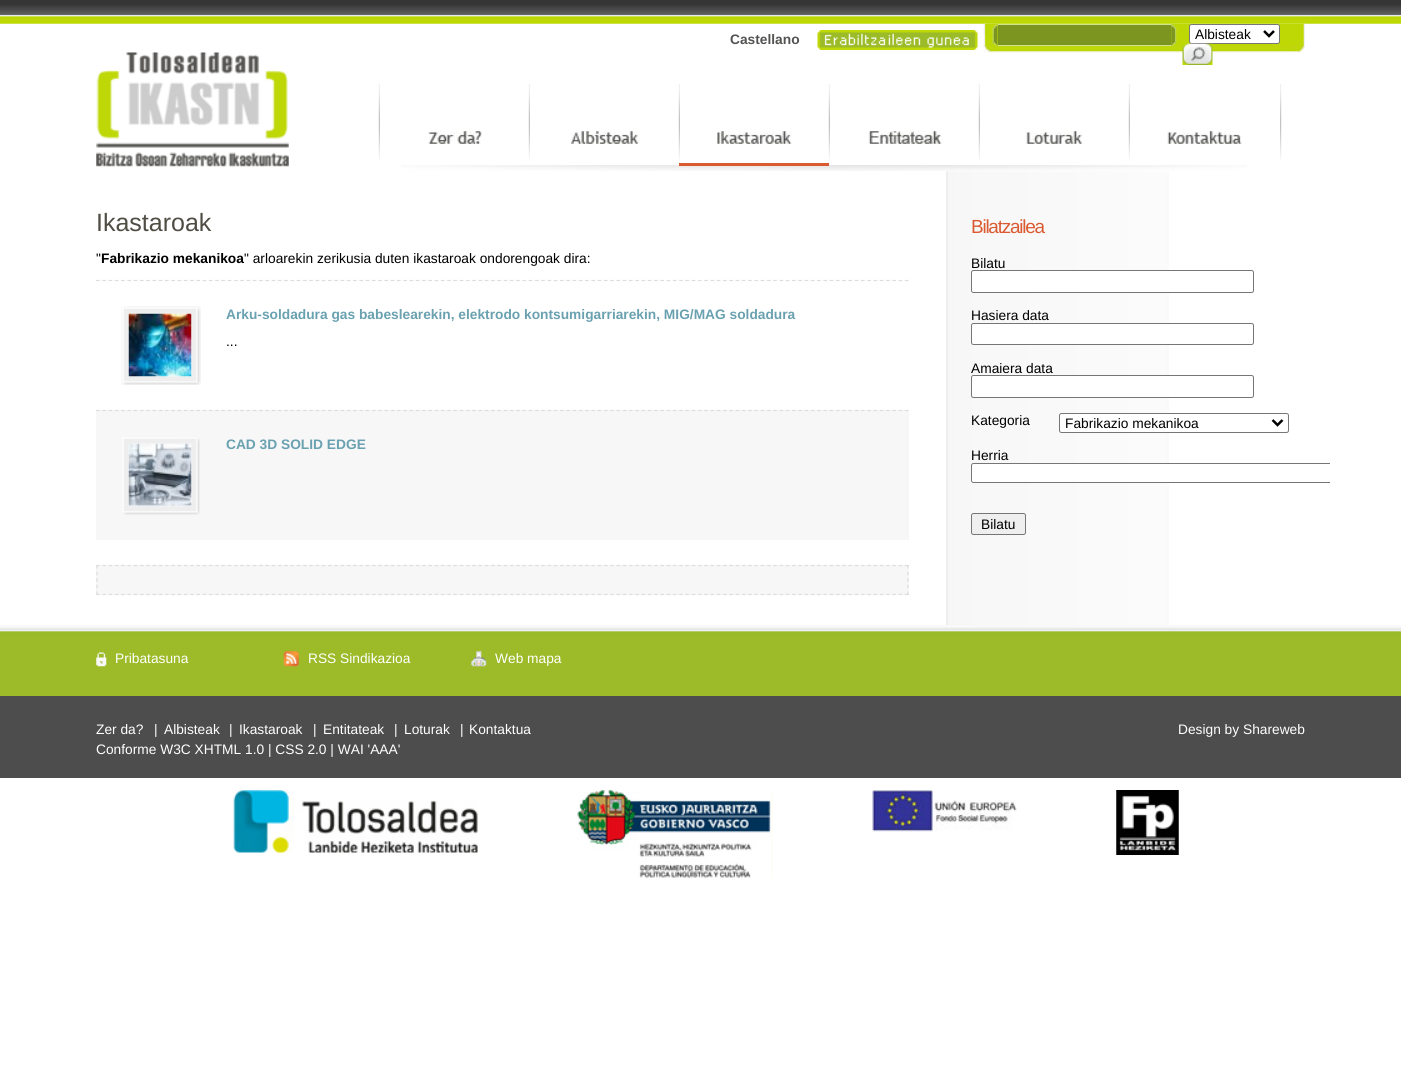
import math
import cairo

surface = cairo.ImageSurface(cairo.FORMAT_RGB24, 1401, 1082)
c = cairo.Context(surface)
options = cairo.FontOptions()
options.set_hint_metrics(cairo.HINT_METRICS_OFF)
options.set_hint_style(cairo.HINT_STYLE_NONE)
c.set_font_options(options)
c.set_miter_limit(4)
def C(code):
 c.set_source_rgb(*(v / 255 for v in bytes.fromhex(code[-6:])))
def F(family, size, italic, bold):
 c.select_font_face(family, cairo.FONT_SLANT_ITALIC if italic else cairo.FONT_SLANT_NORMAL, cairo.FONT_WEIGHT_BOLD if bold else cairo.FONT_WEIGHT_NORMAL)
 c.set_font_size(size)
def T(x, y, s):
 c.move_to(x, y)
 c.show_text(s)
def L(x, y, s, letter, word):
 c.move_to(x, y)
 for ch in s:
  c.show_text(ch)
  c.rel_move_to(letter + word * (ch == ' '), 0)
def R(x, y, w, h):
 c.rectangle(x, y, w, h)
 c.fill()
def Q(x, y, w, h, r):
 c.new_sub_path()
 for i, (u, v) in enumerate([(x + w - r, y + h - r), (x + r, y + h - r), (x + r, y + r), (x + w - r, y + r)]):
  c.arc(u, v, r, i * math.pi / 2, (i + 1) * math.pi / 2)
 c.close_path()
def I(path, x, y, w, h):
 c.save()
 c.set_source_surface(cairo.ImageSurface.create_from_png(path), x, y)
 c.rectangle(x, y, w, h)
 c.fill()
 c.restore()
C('ffffff')
c.paint()
I('1.png',0,0,1401,24)
F('Liberation Sans',13.75,0,1)
C('545351')
T(730,44,'Castellano')
I('2.png',817,30,161,20)
I('3.png',983,23,322,30)
I('4.png',992,23,6,24)
C('7c9520')
R(998,25,173,20)
C('d0e38f')
R(998,24,173,1)
R(998,45,173,1)
I('5.png',1171,23,6,24)
C('ffffff')
Q(1189.5,24.5,90,19,2)
c.fill_preserve()
C('767676')
c.set_line_width(1)
c.stroke()
c.new_path()
c.move_to(1264,31)
c.line_to(1269,36)
c.line_to(1274,31)
C('000000')
c.set_line_width(2.5)
c.stroke()
F('Liberation Sans',13.75,0,0)
T(1195,39,'Albisteak')
I('6.png',1182,43,31,22)
I('7.png',96,52,193,115)
I('8.png',1280,84,2,77)
I('9.png',378,84,2,77)
I('10.png',428,131,54,13)
I('9.png',528,84,2,77)
I('11.png',571,131,68,13)
I('9.png',678,84,2,77)
I('16.png',401,165,846,6)
C('da5a32')
R(679,163,150,3)
I('12.png',717,131,75,13)
I('9.png',828,84,2,77)
I('13.png',868,131,74,13)
I('9.png',978,84,2,77)
I('14.png',1026,131,57,13)
I('9.png',1128,84,2,77)
I('15.png',1167,131,75,13)
F('Liberation Sans',25,0,0)
C('4f4d44')
T(96,231,'Ikastaroak')
F('Liberation Sans',13.75,0,0)
C('000000')
T(96,263,'"')
F('Liberation Sans',13.75,0,1)
T(101,263,'Fabrikazio mekanikoa')
F('Liberation Sans',13.75,0,0)
T(244,263,'" arloarekin zerikusia duten ikastaroak ondorengoak dira:')
c.new_path()
c.move_to(96,280.5)
c.line_to(909,280.5)
C('dddddd')
c.set_line_width(1.2)
c.set_dash([3.75,2.52])
c.stroke()
I('17.png',121,306,80,79)
I('18.png',128,313,64,64)
F('Liberation Sans',13.75,0,1)
C('6aa1b0')
T(226,319,'Arku-soldadura gas babeslearekin, elektrodo kontsumigarriarekin, MIG/MAG soldadura')
F('Liberation Sans',13.75,0,0)
C('000000')
T(226,346,'...')
C('f7f7f7')
R(96,410,813,130)
c.new_path()
c.move_to(96,410.5)
c.line_to(909,410.5)
C('dddddd')
c.stroke()
I('19.png',122,437,78,78)
I('20.png',128,443,64,64)
F('Liberation Sans',13.75,0,1)
C('6aa1b0')
T(226,449,'CAD 3D SOLID EDGE')
C('f7f7f7')
R(96,565,813,30)
c.new_path()
c.move_to(96,565.5)
c.line_to(909,565.5)
C('dddddd')
c.stroke()
c.new_path()
c.move_to(908,565)
c.line_to(908,595)
c.set_dash([3.75,2.81])
c.stroke()
c.new_path()
c.move_to(96,594.5)
c.line_to(909,594.5)
c.set_dash([3.75,2.52])
c.stroke()
c.new_path()
c.move_to(97,565)
c.line_to(97,595)
c.set_dash([3.75,2.81])
c.stroke()
I('21.png',946,171,223,454)
F('Liberation Sans',19,0,0)
C('da5a32')
L(971,233,'Bilatzailea',-1.25,0)
F('Liberation Sans',13.75,0,0)
C('000000')
T(971,268,'Bilatu')
C('ffffff')
Q(971.5,270.5,282,22,2)
c.fill_preserve()
C('767676')
c.set_line_width(1)
c.set_dash([])
c.stroke()
C('000000')
T(971,320,'Hasiera data')
C('ffffff')
Q(971.5,323.5,282,21,2)
c.fill_preserve()
C('767676')
c.stroke()
C('000000')
T(971,373,'Amaiera data')
C('ffffff')
Q(971.5,375.5,282,22,2)
c.fill_preserve()
C('767676')
c.stroke()
C('000000')
T(971,425,'Kategoria')
C('ffffff')
Q(1059.5,413.5,229,19,2)
c.fill_preserve()
C('767676')
c.stroke()
c.new_path()
c.move_to(1272.5,420)
c.line_to(1277.5,425)
c.line_to(1282.5,420)
C('000000')
c.set_line_width(2.5)
c.stroke()
T(1065,428,'Fabrikazio mekanikoa')
T(971,460,'Herria')
C('ffffff')
c.new_path()
c.move_to(973.5,463)
c.line_to(1330,463)
c.line_to(1330,483)
c.line_to(973.5,483)
c.curve_to(972,483,971,482,971,480.5)
c.line_to(971,465.5)
c.curve_to(971,464,972,463,973.5,463)
c.close_path()
c.fill()
c.save()
c.rectangle(71,171,1259,454)
c.clip()
Q(971.5,463.5,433,19,2)
C('767676')
c.set_line_width(1)
c.stroke()
c.restore()
C('efefef')
Q(971.5,513.5,54,21,2)
c.fill_preserve()
C('767676')
c.set_line_width(1)
c.stroke()
C('000000')
T(981,529,'Bilatu')
I('22.png',0,625,1401,71)
I('23.png',96,652,11,15)
C('ffffff')
T(115,663,'Pribatasuna')
I('24.png',283,651,16,16)
T(308,663,'RSS Sindikazioa')
I('25.png',471,651,16,16)
T(495,663,'Web mapa')
C('4e4d4d')
R(0,696,1401,82)
C('ffffff')
T(96,734,'Zer da?')
T(154,734,'|')
T(164,734,'Albisteak')
T(229,734,'|')
T(239,734,'Ikastaroak')
T(313,734,'|')
T(323,734,'Entitateak')
T(394,734,'|')
T(404,734,'Loturak')
T(460,734,'|')
T(469,734,'Kontaktua')
T(96,754,'Conforme W3C XHTML 1.0 | CSS 2.0 | WAI \'AAA\'')
T(1178,734,'Design by Shareweb')
I('26.png',233,790,245,63)
I('27.png',577,790,196,88)
I('28.png',872,790,145,42)
I('29.png',1116,790,63,65)
surface.write_to_png('o.png')
